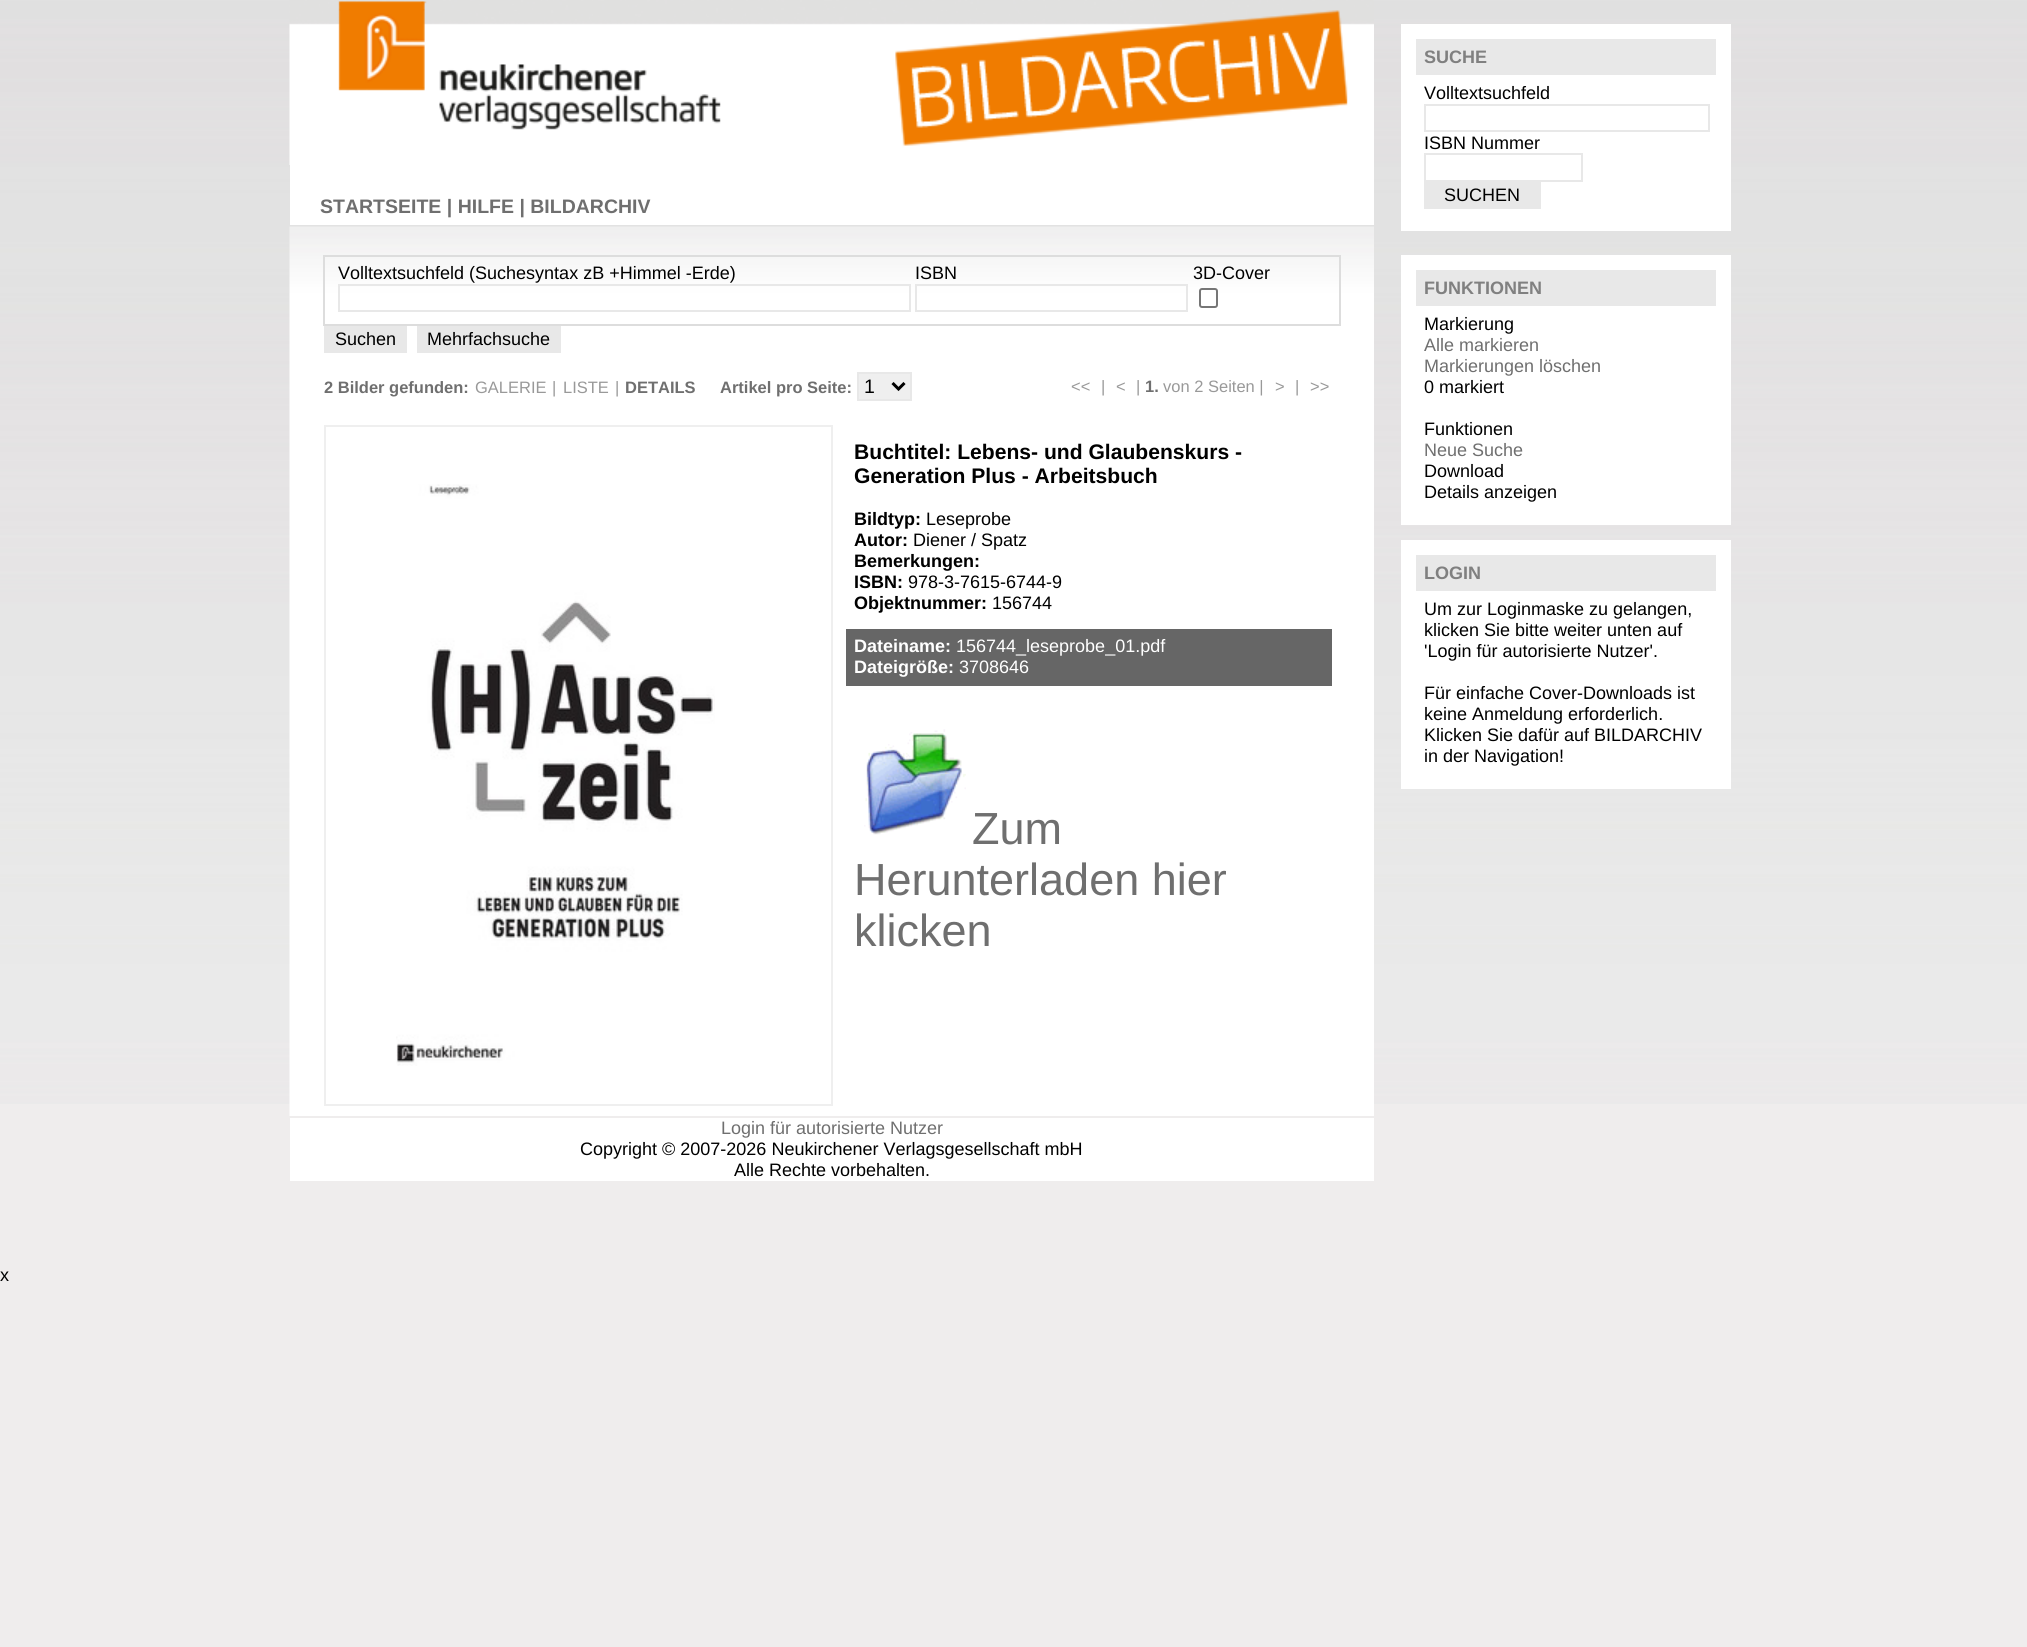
import math
import cairo

surface = cairo.ImageSurface(cairo.FORMAT_RGB24, 2027, 1647)
c = cairo.Context(surface)
options = cairo.FontOptions()
options.set_hint_metrics(cairo.HINT_METRICS_OFF)
options.set_hint_style(cairo.HINT_STYLE_NONE)
c.set_font_options(options)
c.set_miter_limit(4)
def C(code):
 c.set_source_rgb(*(v / 255 for v in bytes.fromhex(code[-6:])))
def F(family, size, italic, bold):
 c.select_font_face(family, cairo.FONT_SLANT_ITALIC if italic else cairo.FONT_SLANT_NORMAL, cairo.FONT_WEIGHT_BOLD if bold else cairo.FONT_WEIGHT_NORMAL)
 c.set_font_size(size)
def T(x, y, s):
 c.move_to(x, y)
 c.show_text(s)
def R(x, y, w, h):
 c.rectangle(x, y, w, h)
 c.fill()
def Q(x, y, w, h, r):
 c.new_sub_path()
 for i, (u, v) in enumerate([(x + w - r, y + h - r), (x + r, y + h - r), (x + r, y + r), (x + w - r, y + r)]):
  c.arc(u, v, r, i * math.pi / 2, (i + 1) * math.pi / 2)
 c.close_path()
def I(path, x, y, w, h):
 c.save()
 c.set_source_surface(cairo.ImageSurface.create_from_png(path), x, y)
 c.rectangle(x, y, w, h)
 c.fill()
 c.restore()
C('efeded')
c.paint()
I('1.png',0,0,2027,1104)
C('ffffff')
R(1401,24,330,207)
C('e8e8e8')
R(1416,39,300,36)
F('Liberation Sans',18,0,1)
C('808080')
T(1424,63,'SUCHE')
F('Liberation Sans',18,0,0)
C('000000')
T(1424,99,'Volltextsuchfeld')
c.rectangle(1425,105,284,26)
C('e8e8e8')
c.stroke()
C('000000')
T(1424,149,'ISBN Nummer')
c.rectangle(1425,154,157,27)
C('e8e8e8')
c.stroke()
R(1424,182,117,27)
C('000000')
T(1444,201,'SUCHEN')
C('ffffff')
R(290,165,1084,60)
I('2.png',289,0,1085,165)
F('Liberation Sans',19.5,0,1)
C('6f6f6f')
T(320,213,'STARTSEITE | HILFE | BILDARCHIV')
I('3.png',289,225,1085,891)
c.rectangle(324,256,1016,69)
C('dddddd')
c.stroke()
F('Liberation Sans',18,0,0)
C('000000')
T(338,279,'Volltextsuchfeld (Suchesyntax zB +Himmel -Erde)')
c.rectangle(339,285,571,26)
C('e8e8e8')
c.stroke()
C('000000')
T(915,279,'ISBN')
c.rectangle(916,285,271,26)
C('e8e8e8')
c.stroke()
C('000000')
T(1193,279,'3D-Cover')
Q(1200,289,17,18,2)
C('767676')
c.stroke()
C('e8e8e8')
R(324,326,83,27)
C('000000')
T(335,345,'Suchen')
C('e8e8e8')
R(417,326,144,27)
C('000000')
T(427,345,'Mehrfachsuche')
F('Liberation Sans',16.5,0,1)
C('6f6f6f')
T(324,393,'2 Bilder gefunden:')
F('Liberation Sans',16.5,0,0)
C('999999')
T(475,393,'GALERIE')
T(552,393,'|')
T(563,393,'LISTE')
T(615,393,'|')
F('Liberation Sans',16.5,0,1)
C('6f6f6f')
T(625,393,'DETAILS')
T(720,393,'Artikel pro Seite:')
C('efefef')
c.rectangle(858,373,53,27)
c.fill_preserve()
C('e8e8e8')
c.stroke()
c.new_path()
c.move_to(892.5,383)
c.line_to(898.5,389)
c.line_to(904.5,383)
C('000000')
c.set_line_width(3)
c.stroke()
F('Liberation Sans',19.5,0,0)
T(864,393,'1')
F('Liberation Sans',16.5,0,0)
C('999999')
T(1071,392,'<<')
T(1101,392,'|')
T(1116,392,'<')
T(1136,392,'|')
F('Liberation Sans',16.5,0,1)
C('6f6f6f')
T(1145,392,'1.')
F('Liberation Sans',16.5,0,0)
C('999999')
T(1163,392,'von 2 Seiten |')
T(1275,392,'>')
T(1295,392,'|')
T(1310,392,'>>')
c.rectangle(325,426,507,679)
C('efefef')
c.set_line_width(2)
c.stroke()
I('4.png',396,484,319,582)
F('Liberation Sans',21.1,0,1)
C('000000')
T(854,459,'Buchtitel: Lebens- und Glaubenskurs -')
T(854,483,'Generation Plus - Arbeitsbuch')
F('Liberation Sans',18,0,1)
T(854,525,'Bildtyp:')
F('Liberation Sans',18,0,0)
T(926,525,'Leseprobe')
F('Liberation Sans',18,0,1)
T(854,546,'Autor:')
F('Liberation Sans',18,0,0)
T(913,546,'Diener / Spatz')
F('Liberation Sans',18,0,1)
T(854,567,'Bemerkungen:')
T(854,588,'ISBN:')
F('Liberation Sans',18,0,0)
T(908,588,'978-3-7615-6744-9')
F('Liberation Sans',18,0,1)
T(854,609,'Objektnummer:')
F('Liberation Sans',18,0,0)
T(992,609,'156744')
C('666666')
R(846,629,486,57)
F('Liberation Sans',18,0,1)
C('ffffff')
T(854,652,'Dateiname:')
F('Liberation Sans',18,0,0)
T(956,652,'156744_leseprobe_01.pdf')
F('Liberation Sans',18,0,1)
T(854,673,'Dateigröße:')
F('Liberation Sans',18,0,0)
T(959,673,'3708646')
I('5.png',864,729,102,106)
F('Liberation Sans',45,0,0)
C('6f6f6f')
T(972,844,'Zum')
T(854,895,'Herunterladen hier')
T(854,946,'klicken')
C('ffffff')
R(1401,255,330,270)
C('e8e8e8')
R(1416,270,300,36)
F('Liberation Sans',18,0,1)
C('808080')
T(1424,294,'FUNKTIONEN')
F('Liberation Sans',18,0,0)
C('000000')
T(1424,330,'Markierung')
C('6f6f6f')
T(1424,351,'Alle markieren')
T(1424,372,'Markierungen löschen')
C('000000')
T(1424,393,'0 markiert')
T(1424,435,'Funktionen')
C('6f6f6f')
T(1424,456,'Neue Suche')
C('000000')
T(1424,477,'Download')
T(1424,498,'Details anzeigen')
C('ffffff')
R(1401,540,330,249)
C('e8e8e8')
R(1416,555,300,36)
F('Liberation Sans',18,0,1)
C('808080')
T(1424,579,'LOGIN')
F('Liberation Sans',18,0,0)
C('000000')
T(1424,615,'Um zur Loginmaske zu gelangen,')
T(1424,636,'klicken Sie bitte weiter unten auf')
T(1424,657,'\'Login für autorisierte Nutzer\'.')
T(1424,699,'Für einfache Cover-Downloads ist')
T(1424,720,'keine Anmeldung erforderlich.')
T(1424,741,'Klicken Sie dafür auf BILDARCHIV')
T(1424,762,'in der Navigation!')
C('ffffff')
R(290,1118,1084,63)
C('6f6f6f')
T(721,1134,'Login für autorisierte Nutzer')
C('000000')
T(580,1155,'Copyright © 2007-2026 Neukirchener Verlagsgesellschaft mbH')
T(734,1176,'Alle Rechte vorbehalten.')
T(0,1281,'x')
surface.write_to_png('o.png')
